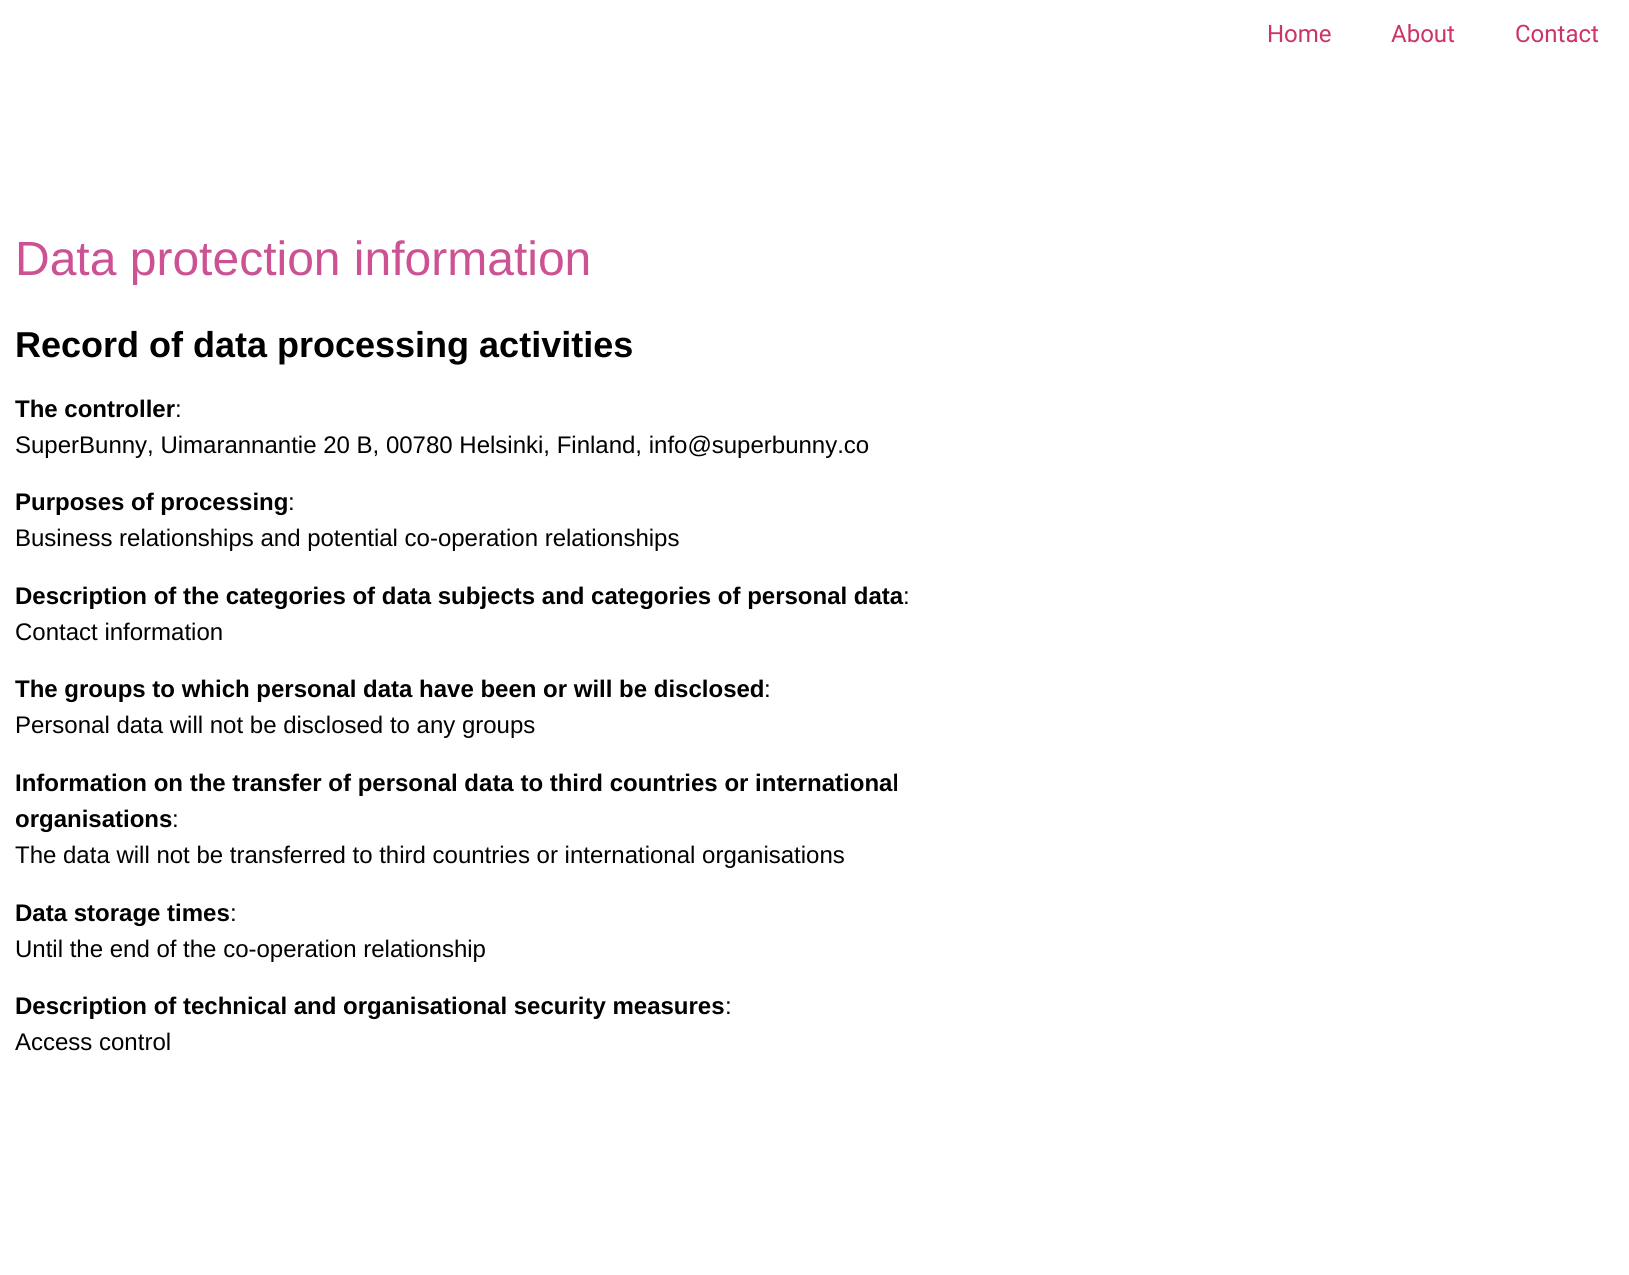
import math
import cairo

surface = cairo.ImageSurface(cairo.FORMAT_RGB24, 1629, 1275)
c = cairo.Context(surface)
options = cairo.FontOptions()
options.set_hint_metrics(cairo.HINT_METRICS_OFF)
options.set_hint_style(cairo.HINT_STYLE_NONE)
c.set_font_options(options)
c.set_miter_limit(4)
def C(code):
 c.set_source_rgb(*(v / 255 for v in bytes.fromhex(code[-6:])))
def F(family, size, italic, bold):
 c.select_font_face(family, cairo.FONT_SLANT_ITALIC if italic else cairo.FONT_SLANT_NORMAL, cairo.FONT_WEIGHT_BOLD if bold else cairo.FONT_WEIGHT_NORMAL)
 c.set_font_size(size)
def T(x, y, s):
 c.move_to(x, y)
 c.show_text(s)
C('ffffff')
c.paint()
F('Roboto',24,0,0)
C('cc3366')
T(1267,42,'Home')
T(1391,42,'About')
T(1515,42,'Contact')
F('Liberation Sans',48,0,0)
C('cc5293')
T(15,275,'Data protection information')
F('Liberation Sans',36,0,1)
C('000000')
T(15,357,'Record of data processing activities')
F('Liberation Sans',24,0,1)
T(15,417,'The controller')
F('Liberation Sans',24,0,0)
T(175,417,':')
T(15,453,'SuperBunny, Uimarannantie 20 B, 00780 Helsinki, Finland, info@superbunny.co')
F('Liberation Sans',24,0,1)
T(15,510,'Purposes of processing')
F('Liberation Sans',24,0,0)
T(288,510,':')
T(15,546,'Business relationships and potential co-operation relationships')
F('Liberation Sans',24,0,1)
T(15,604,'Description of the categories of data subjects and categories of personal data')
F('Liberation Sans',24,0,0)
T(903,604,':')
T(15,640,'Contact information')
F('Liberation Sans',24,0,1)
T(15,697,'The groups to which personal data have been or will be disclosed')
F('Liberation Sans',24,0,0)
T(764,697,':')
T(15,733,'Personal data will not be disclosed to any groups')
F('Liberation Sans',24,0,1)
T(15,791,'Information on the transfer of personal data to third countries or international')
T(15,827,'organisations')
F('Liberation Sans',24,0,0)
T(172,827,':')
T(15,863,'The data will not be transferred to third countries or international organisations')
F('Liberation Sans',24,0,1)
T(15,921,'Data storage times')
F('Liberation Sans',24,0,0)
T(230,921,':')
T(15,957,'Until the end of the co-operation relationship')
F('Liberation Sans',24,0,1)
T(15,1014,'Description of technical and organisational security measures')
F('Liberation Sans',24,0,0)
T(725,1014,':')
T(15,1050,'Access control')
surface.write_to_png('o.png')
